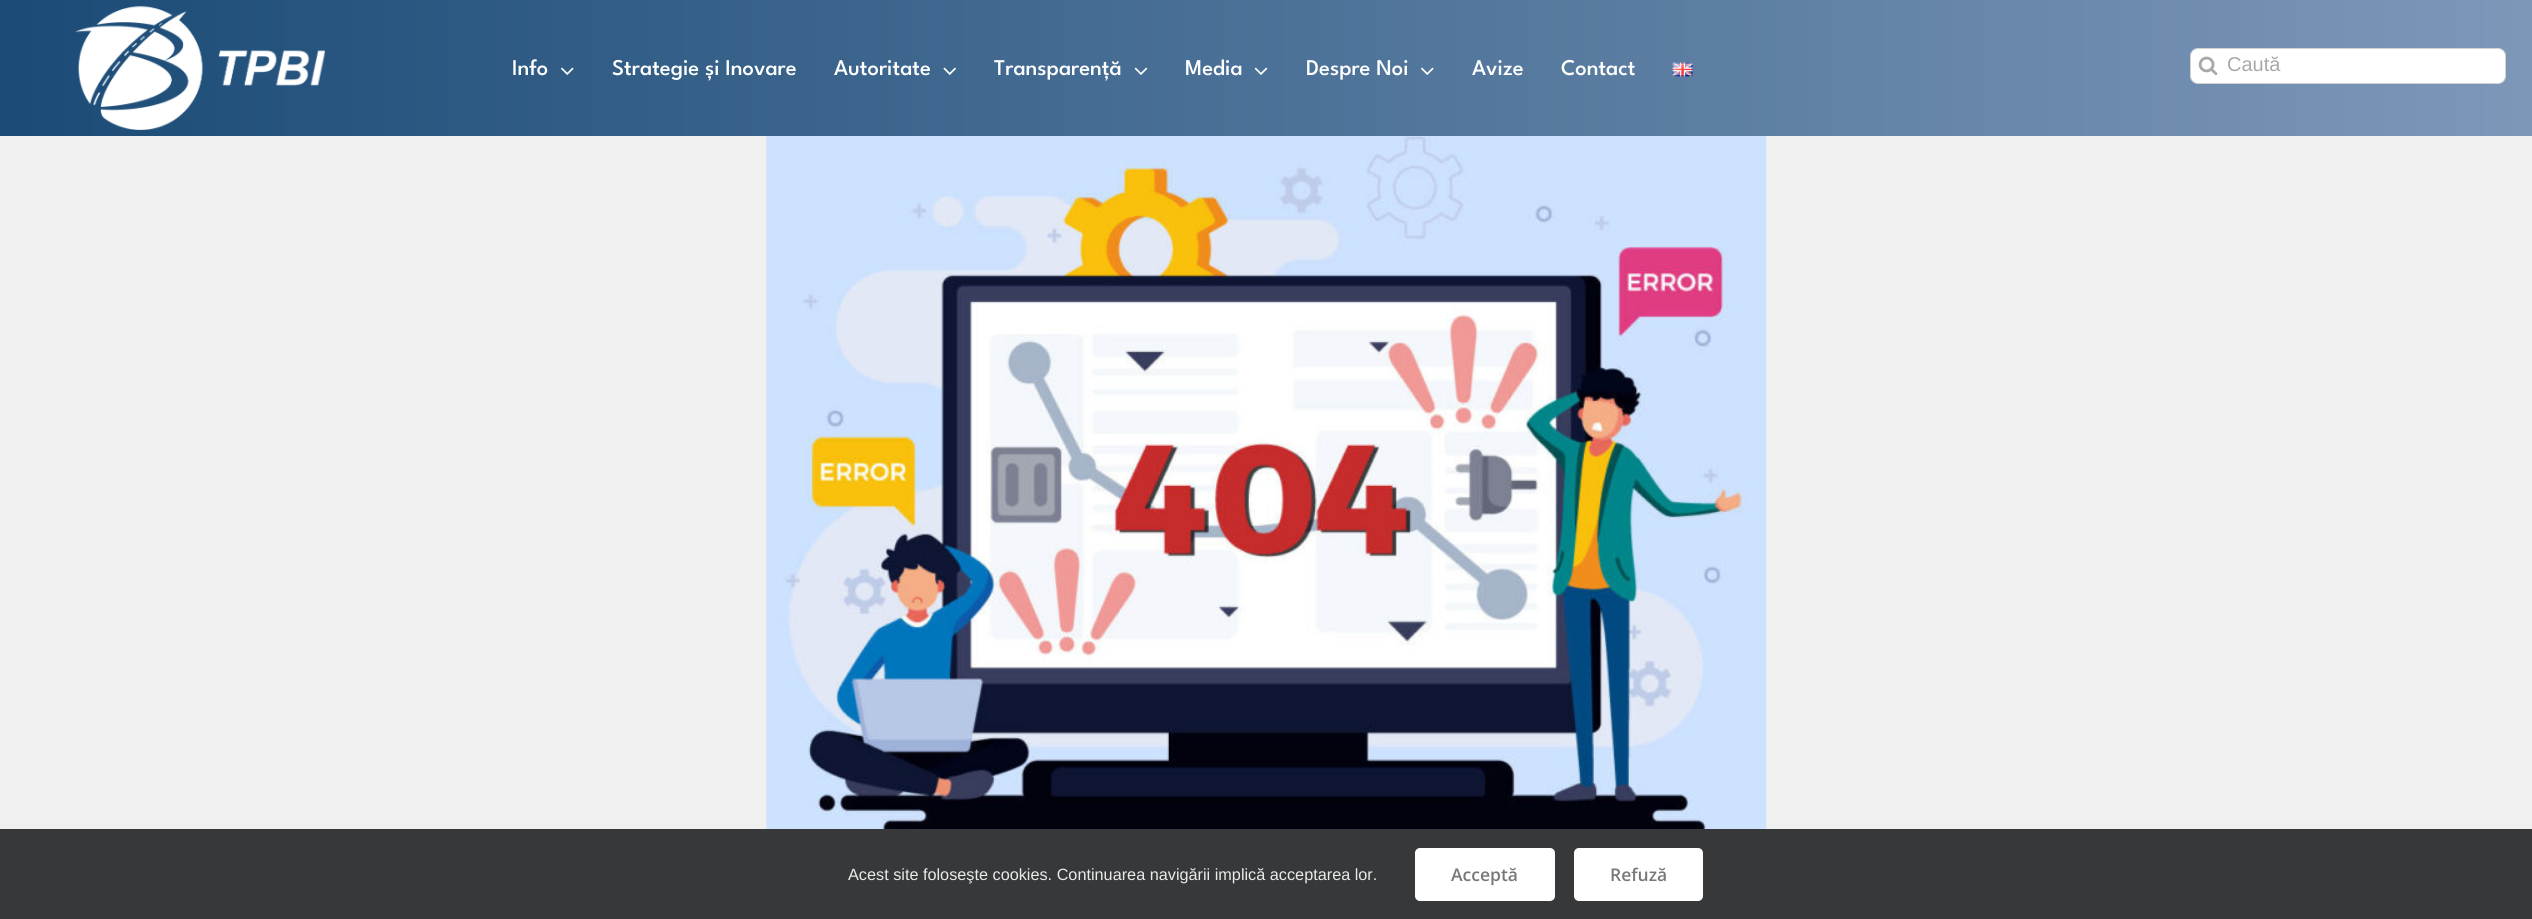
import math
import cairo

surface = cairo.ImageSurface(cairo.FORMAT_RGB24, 2532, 919)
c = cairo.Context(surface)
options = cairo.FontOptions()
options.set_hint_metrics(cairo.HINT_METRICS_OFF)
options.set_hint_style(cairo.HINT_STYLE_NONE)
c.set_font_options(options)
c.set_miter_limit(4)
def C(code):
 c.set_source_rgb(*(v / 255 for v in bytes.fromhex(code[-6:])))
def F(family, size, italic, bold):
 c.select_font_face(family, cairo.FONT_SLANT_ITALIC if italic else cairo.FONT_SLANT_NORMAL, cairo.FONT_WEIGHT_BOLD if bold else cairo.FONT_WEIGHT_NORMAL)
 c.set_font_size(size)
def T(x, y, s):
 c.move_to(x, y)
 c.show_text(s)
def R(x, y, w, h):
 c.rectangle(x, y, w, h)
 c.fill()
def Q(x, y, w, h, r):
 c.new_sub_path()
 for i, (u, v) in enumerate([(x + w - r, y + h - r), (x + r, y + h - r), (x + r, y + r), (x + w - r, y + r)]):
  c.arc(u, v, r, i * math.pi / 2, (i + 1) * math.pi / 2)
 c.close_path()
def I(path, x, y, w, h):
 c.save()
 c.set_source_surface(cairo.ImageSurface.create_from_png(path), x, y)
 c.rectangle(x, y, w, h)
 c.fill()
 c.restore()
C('f0f0f0')
c.paint()
gradient = cairo.LinearGradient(0,68,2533,68)
gradient.add_color_stop_rgba(0,0.102,0.294,0.463,1)
gradient.add_color_stop_rgba(1,0.49,0.592,0.725,1)
c.set_source(gradient)
R(0,0,2532,136)
I('1.png',75,6,250,124)
F('League Spartan Medium',22.5,0,0)
C('ffffff')
T(512,75,'Info')
I('2.png',561,67,13,8)
T(612,75,'Strategie și Inovare')
T(834,75,'Autoritate')
I('3.png',943,67,13,8)
T(994,75,'Transparență')
I('4.png',1134,67,14,8)
T(1185,75,'Media')
I('5.png',1254,67,14,8)
T(1306,75,'Despre Noi')
I('6.png',1421,67,13,8)
T(1472,75,'Avize')
T(1561,75,'Contact')
I('7.png',1672,62,21,15)
Q(2190.5,48.5,315,35,7.5)
c.fill_preserve()
C('d2d2d2')
c.set_line_width(1)
c.stroke()
I('8.png',2198,56,20,20)
F('Liberation Sans',20,0,0)
C('aaa9a9')
T(2227,71,'Caută')
I('9.png',766,136,1001,693)
C('363839')
R(0,829,2532,90)
F('Liberation Sans',16.25,0,0)
C('eaeaea')
T(848,880,'Acest site foloseşte cookies. Continuarea navigării implică acceptarea lor.')
C('ffffff')
Q(1415,848,140,53,5)
c.fill()
F('Open Sans SemiBold',17.5,0,0)
C('787878')
T(1451,881,'Acceptă')
C('ffffff')
Q(1574,848,129,53,5)
c.fill()
C('787878')
T(1610,881,'Refuză')
surface.write_to_png('o.png')
